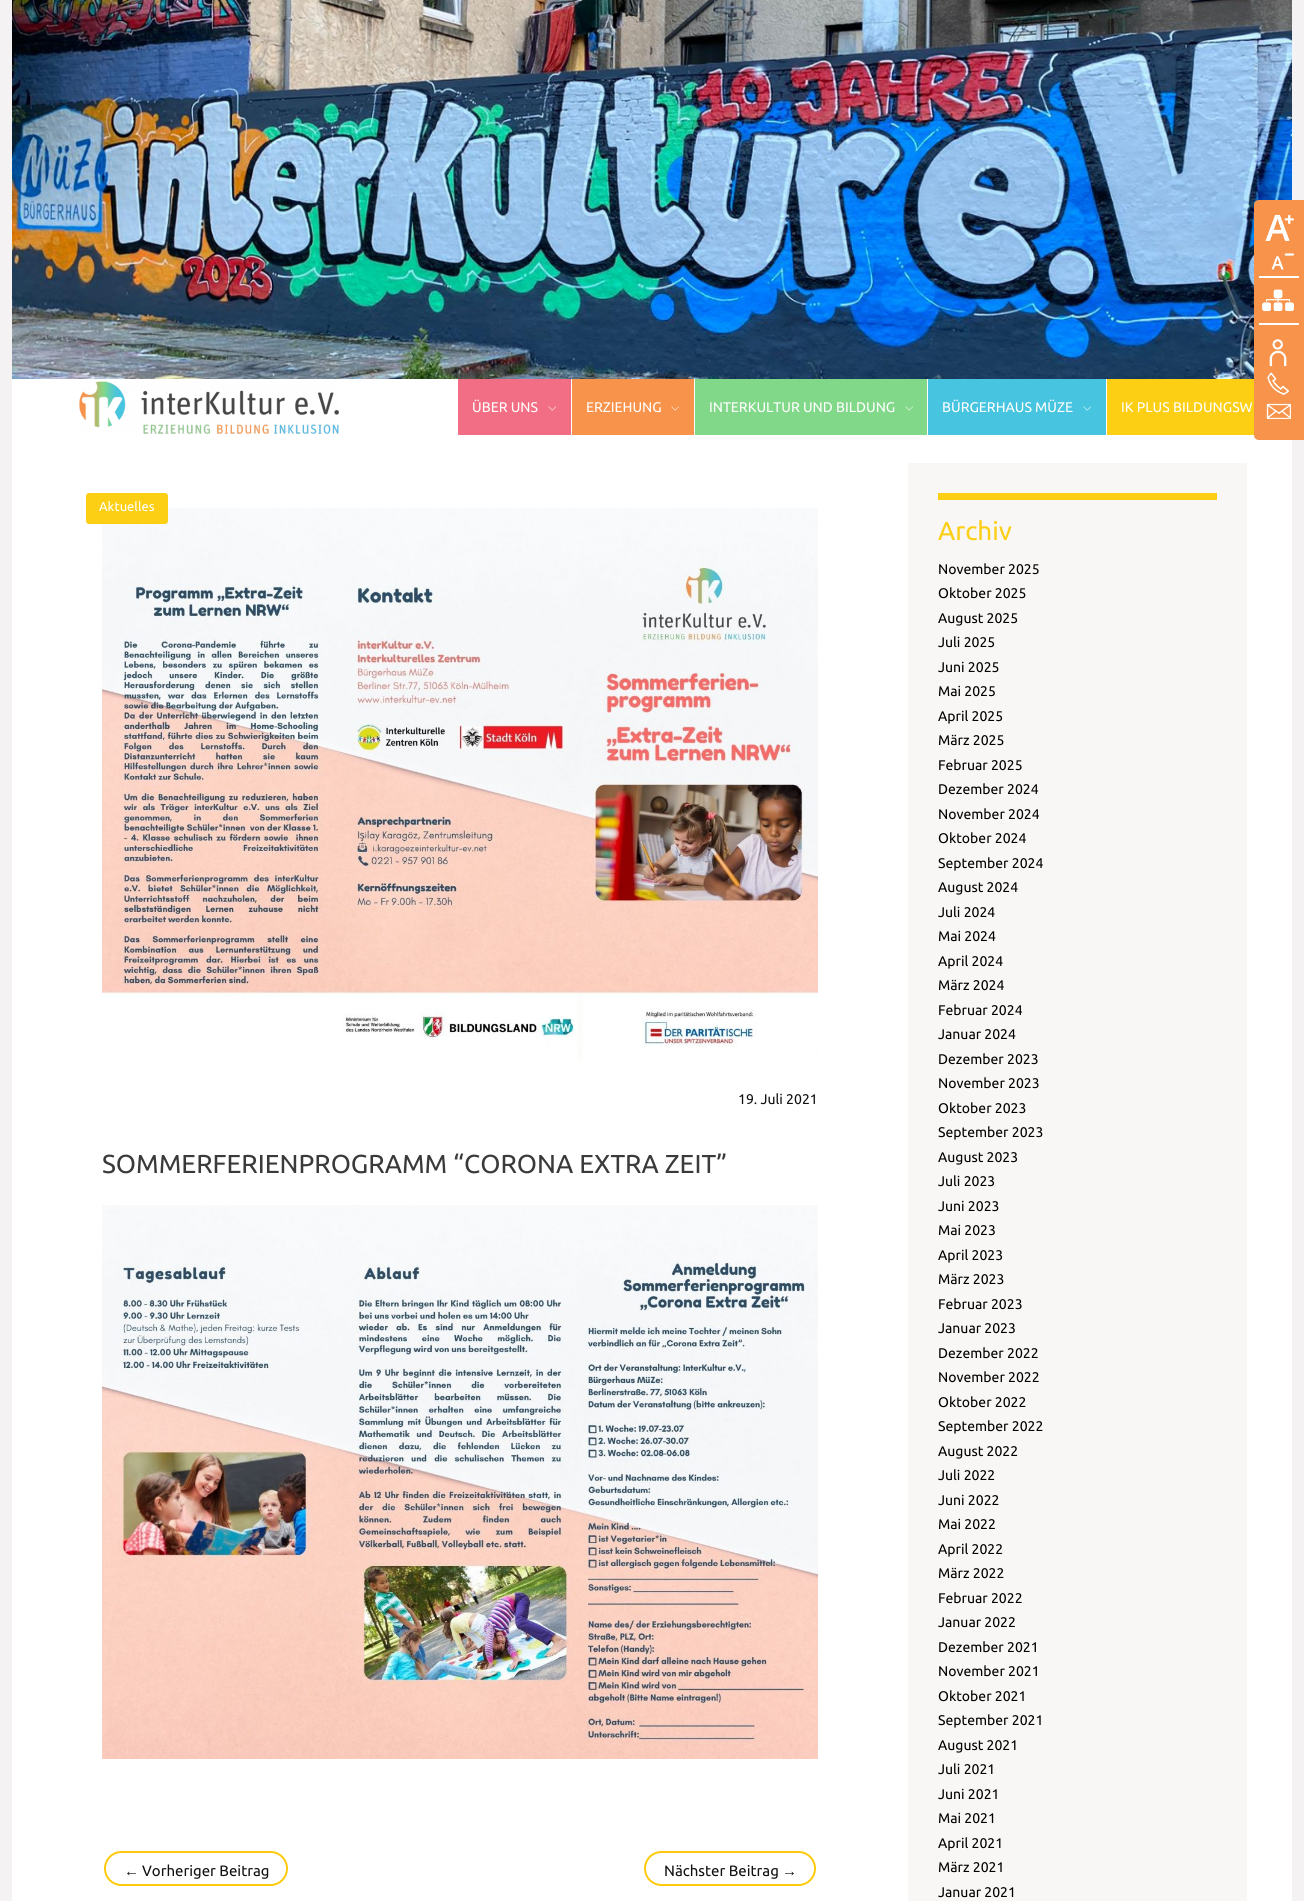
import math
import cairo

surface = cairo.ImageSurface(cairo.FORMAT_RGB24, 1304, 1901)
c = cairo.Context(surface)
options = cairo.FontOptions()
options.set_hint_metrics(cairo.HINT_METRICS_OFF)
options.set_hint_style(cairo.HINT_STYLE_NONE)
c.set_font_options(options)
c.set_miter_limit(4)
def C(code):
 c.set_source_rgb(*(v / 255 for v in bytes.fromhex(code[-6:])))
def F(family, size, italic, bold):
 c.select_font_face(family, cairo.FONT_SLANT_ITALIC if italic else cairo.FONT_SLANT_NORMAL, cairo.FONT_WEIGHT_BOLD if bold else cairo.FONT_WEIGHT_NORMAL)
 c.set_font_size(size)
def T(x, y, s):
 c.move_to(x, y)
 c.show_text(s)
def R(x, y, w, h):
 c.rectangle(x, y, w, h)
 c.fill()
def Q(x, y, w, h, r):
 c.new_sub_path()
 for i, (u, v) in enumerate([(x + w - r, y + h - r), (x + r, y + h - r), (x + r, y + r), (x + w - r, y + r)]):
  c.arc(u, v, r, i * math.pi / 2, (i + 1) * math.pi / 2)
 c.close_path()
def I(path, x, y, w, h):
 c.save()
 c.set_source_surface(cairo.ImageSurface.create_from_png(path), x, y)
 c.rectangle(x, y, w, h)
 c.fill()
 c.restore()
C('f4f2f2')
c.paint()
I('4.png',12,0,1280,379)
C('ffffff')
R(12,435,1280,1466)
C('f7934a')
c.new_path()
c.move_to(1259,200)
c.line_to(1304,200)
c.line_to(1304,440)
c.line_to(1259,440)
c.curve_to(1256,440,1254,438,1254,435)
c.line_to(1254,205)
c.curve_to(1254,202,1256,200,1259,200)
c.close_path()
c.fill()
I('1.png',1265,214,30,56)
C('ffffff')
R(1259,276,40,2)
I('2.png',1262,289,32,23)
R(1259,323,40,2)
I('3.png',1266,339,25,80)
R(12,379,446,56)
I('5.png',79,381,260,53)
C('f26e84')
R(458,379,113,56)
F('Ubuntu',14,0,0)
C('ffffff')
T(472,412,'ÜBER UNS')
I('6.png',548,406,8,5)
C('f7934a')
R(572,379,122,56)
C('ffffff')
R(571,379,1,56)
T(586,412,'ERZIEHUNG')
I('7.png',671,406,8,5)
C('81d889')
R(695,379,232,56)
C('ffffff')
R(694,379,1,56)
T(709,412,'INTERKULTUR UND BILDUNG')
I('8.png',905,406,8,5)
C('47c4df')
R(928,379,178,56)
C('ffffff')
R(927,379,1,56)
T(942,412,'BÜRGERHAUS MÜZE')
I('9.png',1083,406,8,5)
C('fcce14')
R(1107,379,147,56)
C('ffffff')
R(1106,379,1,56)
T(1121,412,'IK PLUS BILDUNGSW')
I('10.png',102,508,716,553)
C('fcce14')
Q(86,493,82,31,3)
c.fill()
F('Ubuntu',13,0,0)
C('ffffff')
T(99,511,'Aktuelles')
F('Ubuntu',14,0,0)
C('111111')
T(738,1104,'19. Juli 2021')
F('Ubuntu',26,0,0)
C('3a3a3a')
T(102,1173,'SOMMERFERIENPROGRAMM “CORONA EXTRA ZEIT”')
I('11.png',102,1205,716,554)
Q(105,1852,182,33,16.5)
C('ffca0d')
c.stroke()
F('Liberation Sans',15,0,0)
C('111111')
T(124,1876,'←')
F('Ubuntu',15,0,0)
T(142,1876,'Vorheriger Beitrag')
Q(645,1852,170,33,16.5)
C('ffca0d')
c.stroke()
C('111111')
T(664,1876,'Nächster Beitrag')
F('Liberation Sans',15,0,0)
T(782,1876,'→')
C('f9f7f6')
R(908,463,339,1438)
C('fcce14')
R(938,493,279,7)
F('Ubuntu',26,0,0)
T(938,540,'Archiv')
F('Ubuntu',14,0,0)
C('000000')
T(938,574,'November 2025')
T(938,598,'Oktober 2025')
T(938,623,'August 2025')
T(938,647,'Juli 2025')
T(938,672,'Juni 2025')
T(938,696,'Mai 2025')
T(938,721,'April 2025')
T(938,745,'März 2025')
T(938,770,'Februar 2025')
T(938,794,'Dezember 2024')
T(938,819,'November 2024')
T(938,843,'Oktober 2024')
T(938,868,'September 2024')
T(938,892,'August 2024')
T(938,917,'Juli 2024')
T(938,941,'Mai 2024')
T(938,966,'April 2024')
T(938,990,'März 2024')
T(938,1015,'Februar 2024')
T(938,1039,'Januar 2024')
T(938,1064,'Dezember 2023')
T(938,1088,'November 2023')
T(938,1113,'Oktober 2023')
T(938,1137,'September 2023')
T(938,1162,'August 2023')
T(938,1186,'Juli 2023')
T(938,1211,'Juni 2023')
T(938,1235,'Mai 2023')
T(938,1260,'April 2023')
T(938,1284,'März 2023')
T(938,1309,'Februar 2023')
T(938,1333,'Januar 2023')
T(938,1358,'Dezember 2022')
T(938,1382,'November 2022')
T(938,1407,'Oktober 2022')
T(938,1431,'September 2022')
T(938,1456,'August 2022')
T(938,1480,'Juli 2022')
T(938,1505,'Juni 2022')
T(938,1529,'Mai 2022')
T(938,1554,'April 2022')
T(938,1578,'März 2022')
T(938,1603,'Februar 2022')
T(938,1627,'Januar 2022')
T(938,1652,'Dezember 2021')
T(938,1676,'November 2021')
T(938,1701,'Oktober 2021')
T(938,1725,'September 2021')
T(938,1750,'August 2021')
T(938,1774,'Juli 2021')
T(938,1799,'Juni 2021')
T(938,1823,'Mai 2021')
T(938,1848,'April 2021')
T(938,1872,'März 2021')
T(938,1897,'Januar 2021')
surface.write_to_png('o.png')
